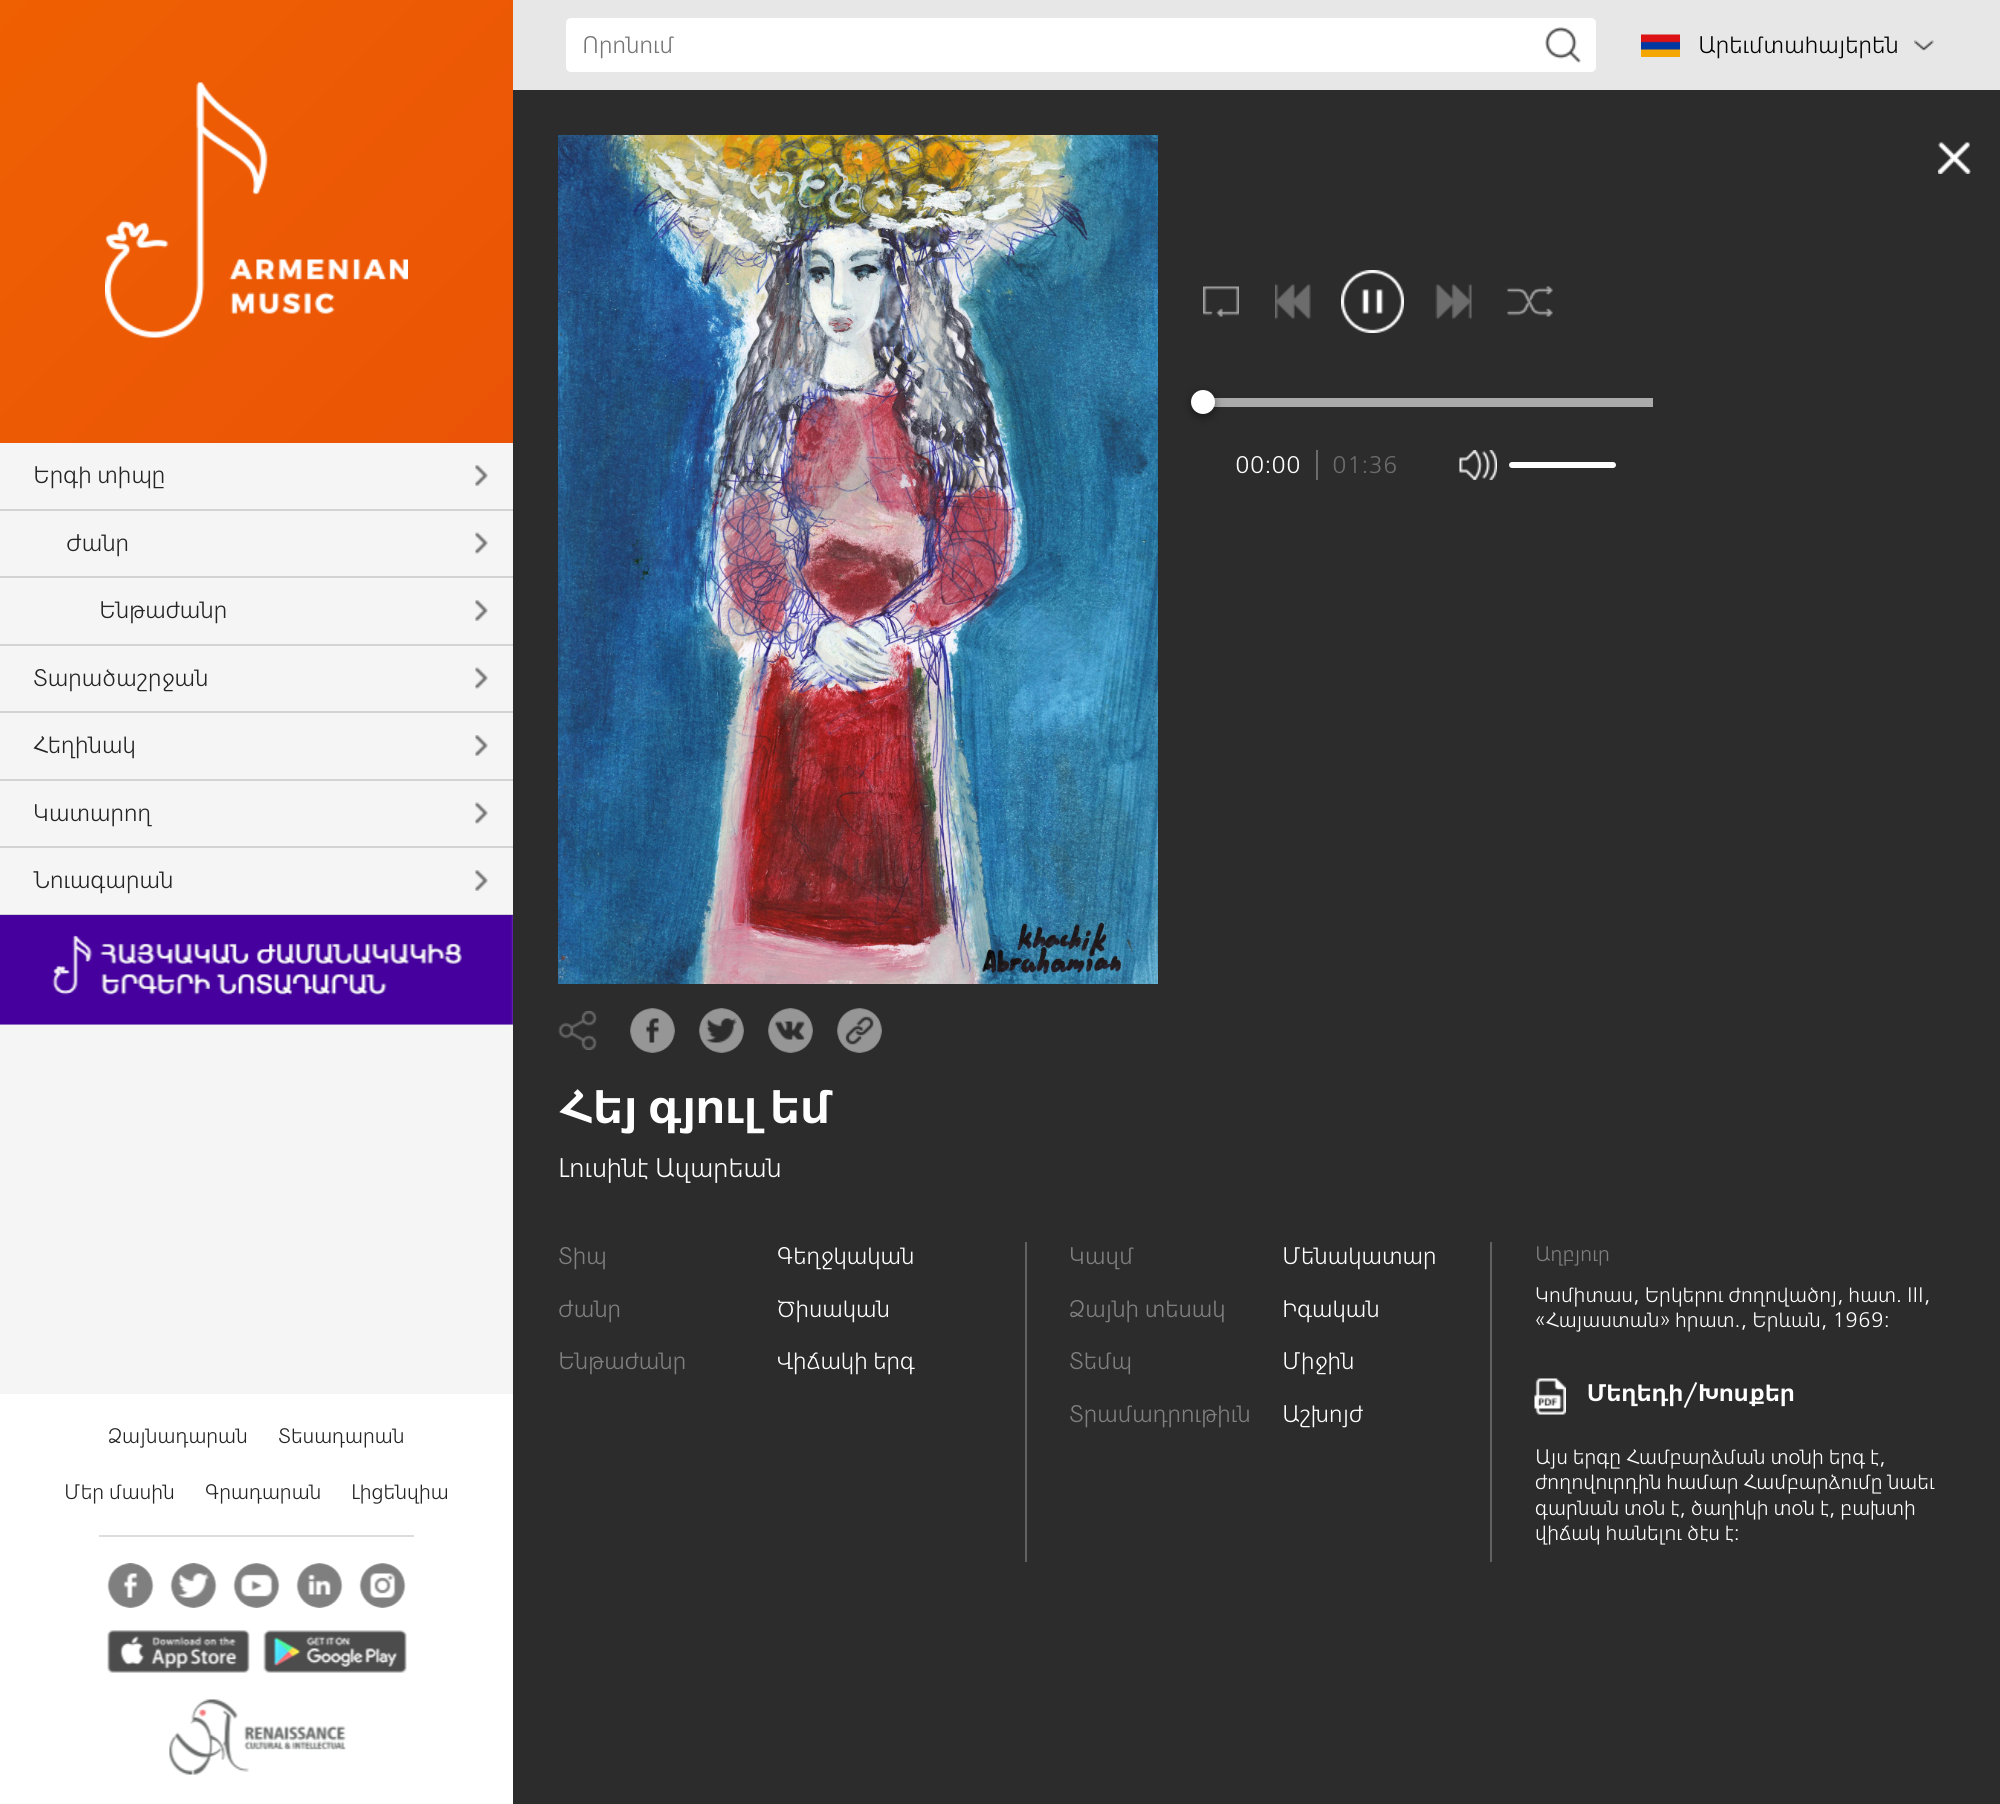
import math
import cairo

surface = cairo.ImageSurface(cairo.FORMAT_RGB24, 2000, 1804)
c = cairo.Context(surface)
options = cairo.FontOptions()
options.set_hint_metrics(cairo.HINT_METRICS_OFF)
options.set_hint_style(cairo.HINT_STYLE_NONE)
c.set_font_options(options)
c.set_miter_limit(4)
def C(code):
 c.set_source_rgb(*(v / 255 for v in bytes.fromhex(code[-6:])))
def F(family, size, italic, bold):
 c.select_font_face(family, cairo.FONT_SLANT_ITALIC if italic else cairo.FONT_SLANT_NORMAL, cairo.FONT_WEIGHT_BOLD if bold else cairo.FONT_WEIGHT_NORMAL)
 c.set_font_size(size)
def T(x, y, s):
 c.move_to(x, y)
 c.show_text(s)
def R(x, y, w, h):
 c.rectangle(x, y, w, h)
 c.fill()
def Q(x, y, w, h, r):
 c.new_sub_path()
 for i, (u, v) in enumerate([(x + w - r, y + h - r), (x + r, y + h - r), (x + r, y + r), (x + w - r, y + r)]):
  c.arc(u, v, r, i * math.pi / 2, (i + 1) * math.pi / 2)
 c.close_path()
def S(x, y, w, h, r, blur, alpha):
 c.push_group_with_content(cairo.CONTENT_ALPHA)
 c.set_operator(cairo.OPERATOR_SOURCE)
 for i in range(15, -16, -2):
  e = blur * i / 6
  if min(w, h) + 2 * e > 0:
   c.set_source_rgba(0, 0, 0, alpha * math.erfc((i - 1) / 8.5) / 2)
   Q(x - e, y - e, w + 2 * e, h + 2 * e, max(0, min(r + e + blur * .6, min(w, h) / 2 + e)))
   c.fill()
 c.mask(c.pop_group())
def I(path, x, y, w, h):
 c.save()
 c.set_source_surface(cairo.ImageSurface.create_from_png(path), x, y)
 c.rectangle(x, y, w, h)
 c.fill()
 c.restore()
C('ffffff')
c.paint()
C('e7e7e7')
R(513,0,1487,90)
C('ffffff')
Q(567,19,1028,52,4)
c.fill_preserve()
c.stroke()
F('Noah',24,0,0)
C('757575')
T(582,53,'Որոնում')
I('1.png',1545,27,36,36)
I('2.png',1641,34,39,23)
C('000000')
T(1698,53,'Արեւմտահայերեն')
I('3.png',1914,40,20,11)
gradient = cairo.LinearGradient(836,1482,-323,323)
gradient.add_color_stop_rgba(0,0.894,0.259,0.047,1)
gradient.add_color_stop_rgba(1,0.937,0.376,0.008,1)
c.set_source(gradient)
R(0,0,513,443)
I('4.png',105,82,303,256)
C('f5f5f5')
R(0,443,513,951)
C('d3d3d3')
R(0,509,513,2)
C('242424')
T(33,483,'Երգի տիպը')
I('5.png',475,465,13,21)
C('d3d3d3')
R(0,576,513,2)
C('242424')
T(66,551,'Ժանր')
I('6.png',475,532,13,22)
C('d3d3d3')
R(0,644,513,2)
C('242424')
T(99,618,'Ենթաժանր')
I('5.png',475,600,13,21)
C('d3d3d3')
R(0,711,513,2)
C('242424')
T(33,686,'Տարածաշրջան')
I('6.png',475,667,13,22)
C('d3d3d3')
R(0,779,513,2)
C('242424')
T(33,753,'Հեղինակ')
I('5.png',475,735,13,21)
C('d3d3d3')
R(0,846,513,2)
C('242424')
T(33,821,'Կատարող')
I('6.png',475,802,13,22)
C('d3d3d3')
R(0,914,513,2)
C('242424')
T(33,888,'Նուագարան')
I('5.png',475,870,13,21)
I('7.png',0,915,513,110)
F('Noah',21,0,0)
T(108,1443,'Ձայնադարան')
T(278,1443,'Տեսադարան')
T(64,1499,'Մեր մասին')
T(205,1499,'Գրադարան')
T(351,1499,'Լիցենզիա')
C('dddddd')
R(99,1535,315,2)
I('8.png',107,1563,47,45)
I('9.png',170,1563,47,45)
I('10.png',233,1563,47,45)
I('11.png',296,1563,47,45)
I('12.png',359,1563,47,45)
I('13.png',107,1630,143,43)
I('14.png',263,1630,144,43)
I('15.png',169,1699,177,76)
C('2c2c2c')
R(513,90,1487,1714)
I('16.png',1938,142,33,32)
C('ababab')
R(1213,398,440,9)
C('000000')
S(1191,393,24,24,12,4.5,.4)
C('ffffff')
c.arc(1203,402,12,0,2 * math.pi)
c.fill()
I('17.png',1203,286,36,31)
I('18.png',1275,283,36,37)
I('19.png',1341,270,63,63)
I('20.png',1435,283,37,37)
I('21.png',1507,286,46,31)
F('Noah',24,0,0)
T(1235,473,'00:00')
C('6b6b6b')
R(1316,450,2,30)
T(1332,473,'01:36')
I('22.png',1459,450,38,30)
C('ffffff')
Q(1509,462,107,6,3)
c.fill()
I('23.png',558,135,600,849)
I('24.png',558,1011,39,39)
I('25.png',630,1008,45,45)
I('26.png',699,1008,45,45)
I('27.png',768,1008,45,45)
I('28.png',837,1008,45,45)
F('Noah SemiBold',48,0,0)
T(558,1123,'Հեյ գյուլ եմ')
F('Noah',27,0,0)
T(558,1177,'Լուսինէ Ազարեան')
F('Noah',24,0,0)
C('808080')
T(558,1264,'Տիպ')
C('ffffff')
T(777,1264,'Գեղջկական')
C('808080')
T(558,1317,'Ժանր')
C('ffffff')
T(777,1317,'Ծիսական')
C('808080')
T(558,1369,'Ենթաժանր')
C('ffffff')
T(777,1369,'Վիճակի երգ')
C('616161')
R(1025,1242,2,320)
C('808080')
T(1069,1264,'Կազմ')
C('ffffff')
T(1282,1264,'Մենակատար')
C('808080')
T(1069,1317,'Ձայնի տեսակ')
C('ffffff')
T(1282,1317,'Իգական')
C('808080')
T(1069,1369,'Տեմպ')
C('ffffff')
T(1282,1369,'Միջին')
C('808080')
T(1069,1422,'Տրամադրութիւն')
C('ffffff')
T(1282,1422,'Աշխոյժ')
C('616161')
R(1490,1242,2,320)
F('Noah',21,0,0)
C('808080')
T(1535,1261,'Աղբյուր')
C('ffffff')
T(1535,1302,'Կոմիտաս, Երկերու ժողովածոյ, հատ. III,')
T(1535,1327,'«Հայաստան» հրատ., Երևան, 1969:')
I('29.png',1534,1378,32,37)
F('Noah SemiBold',24,0,0)
T(1587,1401,'Մեղեդի/Խոսքեր')
F('Noah',21,0,0)
T(1535,1464,'Այս երգը Համբարձման տօնի երգ է,')
T(1535,1489,'ժողովուրդին համար Համբարձումը նաեւ')
T(1535,1515,'գարնան տօն է, ծաղիկի տօն է, բախտի')
T(1535,1540,'վիճակ հանելու ծէս է:')
surface.write_to_png('o.png')
